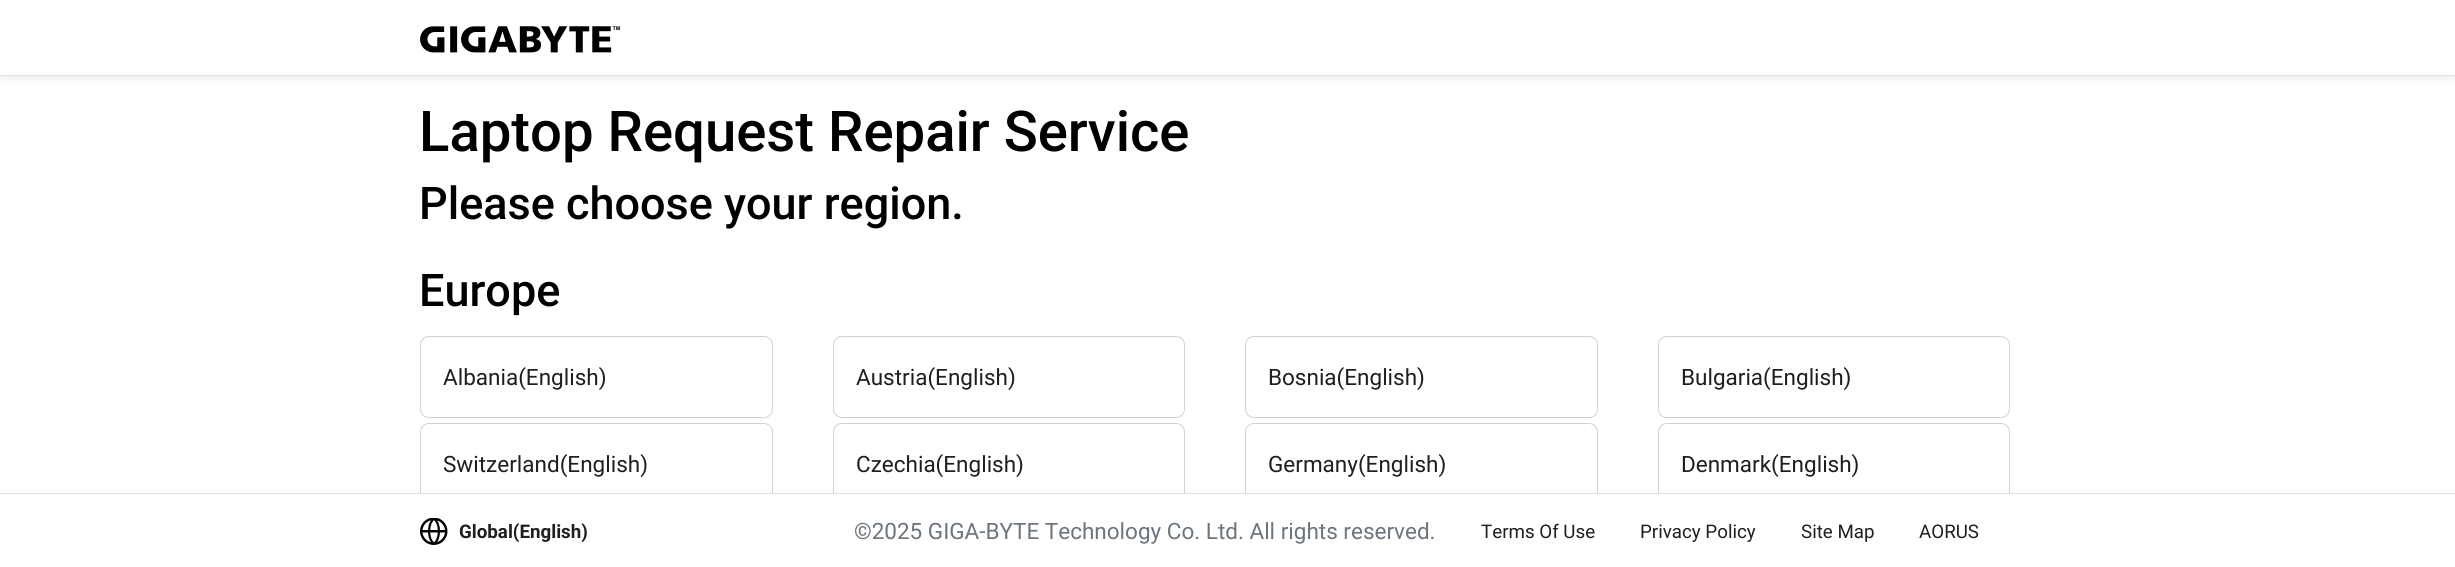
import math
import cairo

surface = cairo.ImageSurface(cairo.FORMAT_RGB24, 2455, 567)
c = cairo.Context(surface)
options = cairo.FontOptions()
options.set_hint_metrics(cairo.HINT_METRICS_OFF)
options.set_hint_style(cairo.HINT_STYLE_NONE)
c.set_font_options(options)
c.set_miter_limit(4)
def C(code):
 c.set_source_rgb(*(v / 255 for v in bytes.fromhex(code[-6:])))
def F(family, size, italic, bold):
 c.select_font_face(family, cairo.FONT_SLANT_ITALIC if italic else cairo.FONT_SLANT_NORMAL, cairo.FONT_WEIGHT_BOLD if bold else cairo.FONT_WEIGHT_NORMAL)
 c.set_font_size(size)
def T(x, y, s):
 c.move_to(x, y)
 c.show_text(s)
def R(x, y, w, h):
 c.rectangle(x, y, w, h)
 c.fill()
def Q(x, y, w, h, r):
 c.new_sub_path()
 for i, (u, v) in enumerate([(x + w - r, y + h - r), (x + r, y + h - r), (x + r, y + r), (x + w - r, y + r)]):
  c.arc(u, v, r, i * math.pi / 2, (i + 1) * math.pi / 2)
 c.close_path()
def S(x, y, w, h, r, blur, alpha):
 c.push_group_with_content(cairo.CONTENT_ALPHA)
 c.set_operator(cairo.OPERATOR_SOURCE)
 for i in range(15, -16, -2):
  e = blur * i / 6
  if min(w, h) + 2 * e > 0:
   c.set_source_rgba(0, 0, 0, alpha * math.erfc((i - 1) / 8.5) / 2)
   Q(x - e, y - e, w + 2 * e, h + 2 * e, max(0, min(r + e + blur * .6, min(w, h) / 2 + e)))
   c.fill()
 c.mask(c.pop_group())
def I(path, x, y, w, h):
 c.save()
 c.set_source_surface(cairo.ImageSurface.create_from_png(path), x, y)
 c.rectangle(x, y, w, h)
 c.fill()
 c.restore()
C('ffffff')
c.paint()
c.save()
c.rectangle(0,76,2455,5)
c.clip()
C('000000')
S(0,3,2455,76,0,3,.07)
c.restore()
C('dee2e6')
R(0,75,2455,1)
I('1.png',420,26,200,27)
F('Roboto Medium',56.25,0,0)
C('000000')
T(419,151,'Laptop Request Repair Service')
F('Roboto Medium',45,0,0)
T(419,219,'Please choose your region.')
T(419,306,'Europe')
Q(420.5,336.5,352,81,8.5)
C('d2d2d2')
c.set_line_width(1)
c.stroke()
F('Roboto',22.5,0,0)
C('1f1f1f')
T(443,385,'Albania(English)')
Q(833.5,336.5,351,81,8.5)
C('d2d2d2')
c.stroke()
C('1f1f1f')
T(856,385,'Austria(English)')
Q(1245.5,336.5,352,81,8.5)
C('d2d2d2')
c.stroke()
C('1f1f1f')
T(1268,385,'Bosnia(English)')
Q(1658.5,336.5,351,81,8.5)
C('d2d2d2')
c.stroke()
C('1f1f1f')
T(1681,385,'Bulgaria(English)')
Q(420.5,423.5,352,80,8.5)
C('d2d2d2')
c.stroke()
C('1f1f1f')
T(443,472,'Switzerland(English)')
Q(833.5,423.5,351,80,8.5)
C('d2d2d2')
c.stroke()
C('1f1f1f')
T(856,472,'Czechia(English)')
Q(1245.5,423.5,352,80,8.5)
C('d2d2d2')
c.stroke()
C('1f1f1f')
T(1268,472,'Germany(English)')
Q(1658.5,423.5,351,80,8.5)
C('d2d2d2')
c.stroke()
C('1f1f1f')
T(1681,472,'Denmark(English)')
C('ffffff')
R(420,494,1590,10)
C('dee2e6')
R(0,493,2455,1)
I('2.png',420,518,28,27)
F('Roboto',18.75,0,1)
C('1f1f1f')
T(459,538,'Global(English)')
F('Roboto',22.5,0,0)
C('6c757d')
T(854,539,'©2025 GIGA-BYTE Technology Co. Ltd. All rights reserved.')
F('Roboto',18.75,0,0)
C('1f1f1f')
T(1481,538,'Terms Of Use')
T(1640,538,'Privacy Policy')
T(1801,538,'Site Map')
T(1919,538,'AORUS')
surface.write_to_png('o.png')
